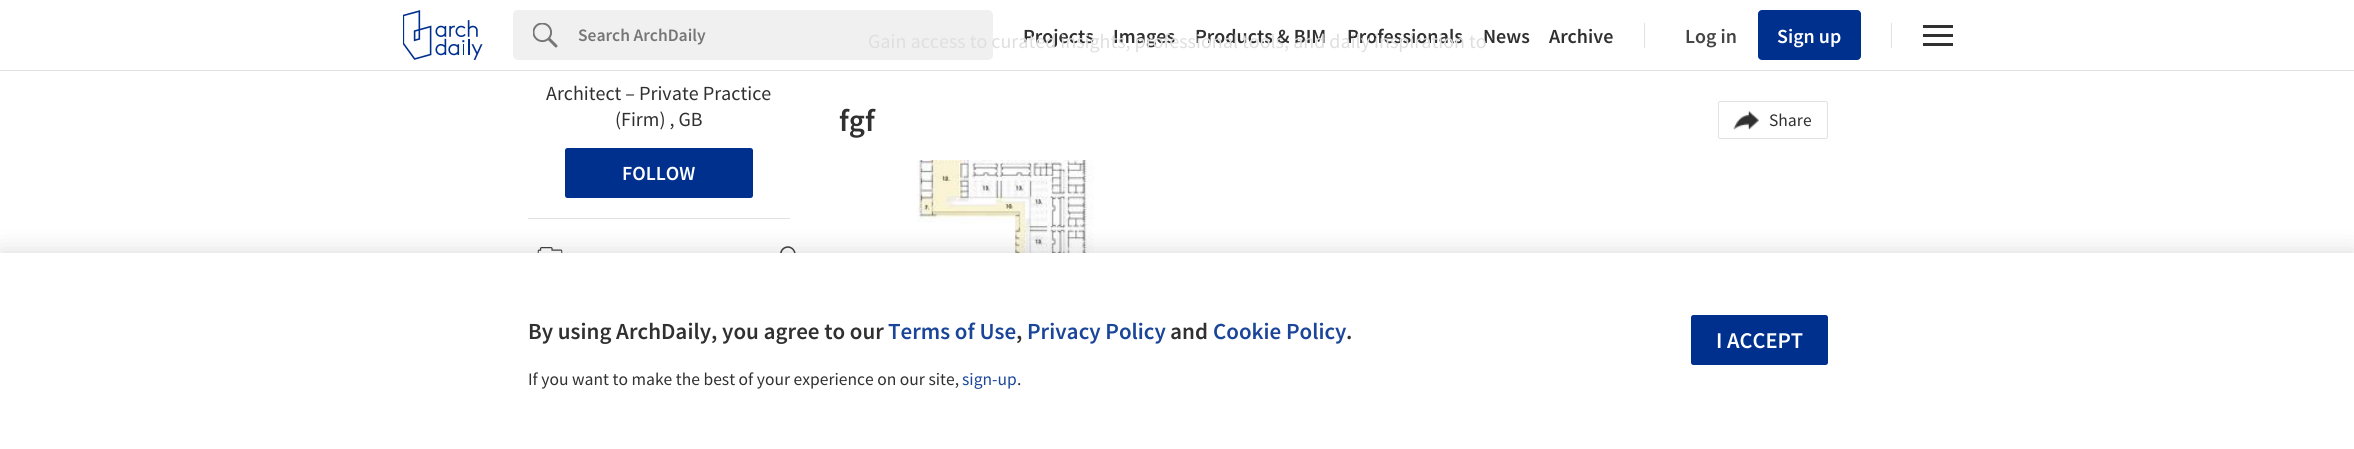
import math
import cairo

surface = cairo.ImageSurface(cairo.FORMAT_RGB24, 2354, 449)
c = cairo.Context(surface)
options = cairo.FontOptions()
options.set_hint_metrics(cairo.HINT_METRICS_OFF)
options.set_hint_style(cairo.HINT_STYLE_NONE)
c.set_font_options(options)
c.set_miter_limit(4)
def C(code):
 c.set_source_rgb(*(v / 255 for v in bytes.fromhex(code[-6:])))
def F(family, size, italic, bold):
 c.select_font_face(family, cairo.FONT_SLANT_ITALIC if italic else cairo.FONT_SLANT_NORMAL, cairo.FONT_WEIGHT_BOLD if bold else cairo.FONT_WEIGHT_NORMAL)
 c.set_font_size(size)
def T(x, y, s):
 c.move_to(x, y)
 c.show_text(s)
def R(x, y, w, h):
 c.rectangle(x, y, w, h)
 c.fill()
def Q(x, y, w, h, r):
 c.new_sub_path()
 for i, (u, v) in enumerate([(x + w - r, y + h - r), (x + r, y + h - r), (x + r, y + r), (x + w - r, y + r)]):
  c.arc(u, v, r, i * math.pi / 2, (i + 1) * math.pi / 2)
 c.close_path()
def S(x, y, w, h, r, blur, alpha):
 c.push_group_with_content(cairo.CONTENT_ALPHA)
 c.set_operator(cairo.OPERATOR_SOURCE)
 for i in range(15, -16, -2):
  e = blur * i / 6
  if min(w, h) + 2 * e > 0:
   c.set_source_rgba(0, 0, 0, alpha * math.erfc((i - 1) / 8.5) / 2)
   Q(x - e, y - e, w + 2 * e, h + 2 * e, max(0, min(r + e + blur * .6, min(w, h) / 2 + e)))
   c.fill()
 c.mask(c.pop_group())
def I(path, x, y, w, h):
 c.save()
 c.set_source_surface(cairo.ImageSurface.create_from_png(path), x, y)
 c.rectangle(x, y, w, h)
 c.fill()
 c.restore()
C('ffffff')
c.paint()
C('e1e1e1')
R(0,70,2354,1)
I('1.png',403,10,80,50)
C('f0f0f0')
Q(513,10,480,50,5)
c.fill()
I('2.png',533,23,25,25)
F('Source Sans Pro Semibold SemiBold',17.5,0,0)
C('767676')
T(578,41,'Search ArchDaily')
F('Source Sans Pro Semibold SemiBold',20,0,0)
C('303030')
T(1023,43,'Projects')
T(1113,43,'Images')
T(1195,43,'Products & BIM')
T(1347,43,'Professionals')
T(1483,43,'News')
T(1549,43,'Archive')
C('e1e1e1')
R(1644,23,1,25)
C('444444')
T(1685,43,'Log in')
C('00308e')
Q(1758,10,103,50,4)
c.fill()
C('ffffff')
T(1777,43,'Sign up')
C('e1e1e1')
R(1891,23,1,25)
C('303030')
R(1923,34,30,3)
R(1923,25,30,3)
R(1923,43,30,3)
C('e1e1e1')
R(528,218,262,1)
I('3.png',537,247,26,6)
I('4.png',780,246,16,7)
I('6.png',917,160,177,93)
C('000000')
S(0,253,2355,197,0,12.5,.15)
C('ffffff')
R(0,253,2354,196)
F('Source Sans Pro Semibold SemiBold',23,0,0)
C('303030')
T(528,339,'By using ArchDaily, you agree to our')
C('1a4599')
T(888,339,'Terms of Use')
C('303030')
T(1016,339,',')
C('1a4599')
T(1027,339,'Privacy Policy')
C('303030')
T(1170,339,'and')
C('1a4599')
T(1213,339,'Cookie Policy')
C('303030')
T(1346,339,'.')
F('Source Sans Pro',17.5,0,0)
T(528,385,'If you want to make the best of your experience on our site,')
C('1a4599')
T(962,385,'sign-up')
C('303030')
T(1017,385,'.')
C('00308e')
Q(1691,315,137,50,2.5)
c.fill()
F('Source Sans Pro Semibold SemiBold',22.5,0,0)
C('ffffff')
T(1716,348,'I ACCEPT')
F('Source Sans Pro',20,0,0)
C('dfdfdf')
T(868,48,'Gain access to curated insights, professional tools, and daily inspiration to')
C('303030')
T(546,100,'Architect – Private Practice')
T(615,126,'(Firm) , GB')
C('00308e')
Q(565,148,188,50,2.5)
c.fill()
F('Source Sans Pro Semibold SemiBold',20,0,0)
C('ffffff')
T(622,180,'FOLLOW')
F('Source Sans Pro Semibold SemiBold',31,0,0)
C('303030')
T(839,131,'fgf')
Q(1718.5,101.5,109,37,2)
C('e1e1e1')
c.set_line_width(1)
c.stroke()
I('5.png',1733,111,26,19)
F('Source Sans Pro',17.5,0,0)
C('303030')
T(1769,126,'Share')
surface.write_to_png('o.png')
